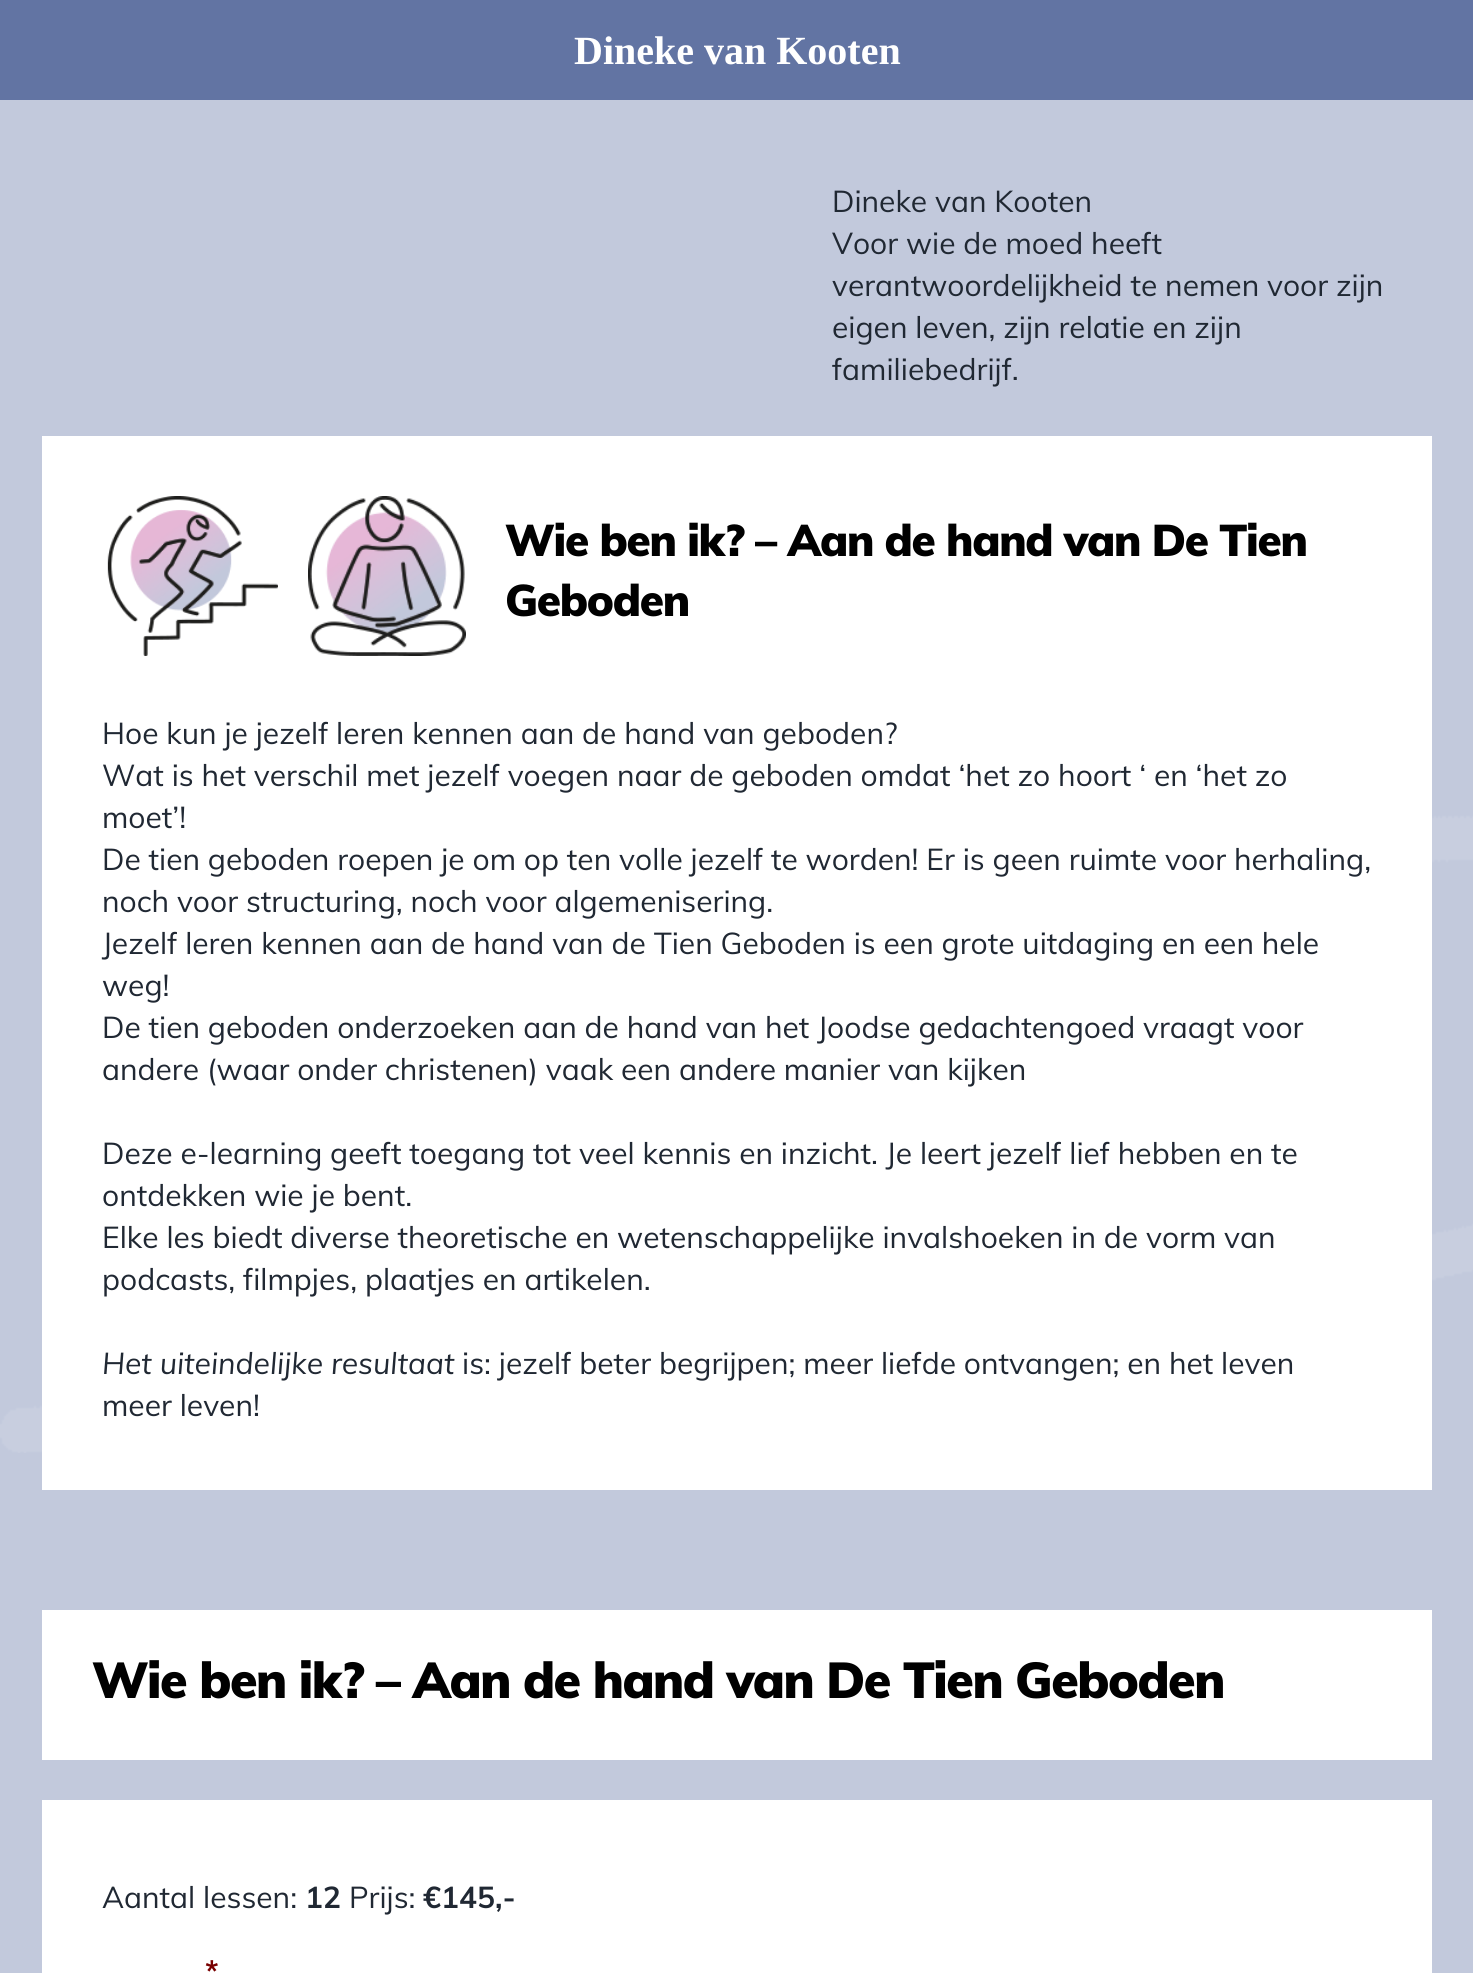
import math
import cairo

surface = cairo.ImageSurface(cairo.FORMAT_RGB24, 1473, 1973)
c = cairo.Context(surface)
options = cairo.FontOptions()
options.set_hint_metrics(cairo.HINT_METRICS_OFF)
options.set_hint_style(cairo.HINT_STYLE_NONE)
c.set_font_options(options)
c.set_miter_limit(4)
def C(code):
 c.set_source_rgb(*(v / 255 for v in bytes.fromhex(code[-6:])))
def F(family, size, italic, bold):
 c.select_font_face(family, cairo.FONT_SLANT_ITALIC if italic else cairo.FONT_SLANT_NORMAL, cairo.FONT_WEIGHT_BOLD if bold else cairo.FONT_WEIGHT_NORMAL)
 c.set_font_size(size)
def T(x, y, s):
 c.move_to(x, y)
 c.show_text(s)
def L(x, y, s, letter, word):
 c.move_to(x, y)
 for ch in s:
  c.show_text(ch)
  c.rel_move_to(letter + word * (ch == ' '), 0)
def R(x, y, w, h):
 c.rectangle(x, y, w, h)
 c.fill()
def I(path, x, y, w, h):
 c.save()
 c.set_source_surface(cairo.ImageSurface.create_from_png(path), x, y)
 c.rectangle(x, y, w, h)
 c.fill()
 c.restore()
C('c2c9dc')
c.paint()
I('1.png',0,815,1473,638)
C('6274a3')
R(0,0,1473,100)
F('Liberation Serif',40,0,1)
C('ffffff')
T(574,64,'Dineke van Kooten')
F('Muli',30,0,0)
C('202833')
T(832,212,'Dineke van Kooten')
T(832,254,'Voor wie de moed heeft')
T(832,296,'verantwoordelijkheid te nemen voor zijn')
T(832,338,'eigen leven, zijn relatie en zijn')
T(832,380,'familiebedrijf.')
C('ffffff')
R(42,436,1390,1054)
I('2.png',107,496,171,160)
I('3.png',308,496,158,160)
F('Muli Black',44,0,0)
C('000000')
L(505,556,'Wie ben ik? – Aan de hand van De Tien',-1.3,0)
L(505,616,'Geboden',-1.3,0)
F('Muli',30,0,0)
C('202833')
T(102,744,'Hoe kun je jezelf leren kennen aan de hand van geboden?')
T(102,786,'Wat is het verschil met jezelf voegen naar de geboden omdat ‘het zo hoort ‘ en ‘het zo')
T(102,828,'moet’!')
T(102,870,'De tien geboden roepen je om op ten volle jezelf te worden! Er is geen ruimte voor herhaling,')
T(102,912,'noch voor structuring, noch voor algemenisering.')
T(102,954,'Jezelf leren kennen aan de hand van de Tien Geboden is een grote uitdaging en een hele')
T(102,996,'weg!')
T(102,1038,'De tien geboden onderzoeken aan de hand van het Joodse gedachtengoed vraagt voor')
T(102,1080,'andere (waar onder christenen) vaak een andere manier van kijken')
T(102,1164,'Deze e-learning geeft toegang tot veel kennis en inzicht. Je leert jezelf lief hebben en te')
T(102,1206,'ontdekken wie je bent.')
T(102,1248,'Elke les biedt diverse theoretische en wetenschappelijke invalshoeken in de vorm van')
T(102,1290,'podcasts, filmpjes, plaatjes en artikelen.')
F('Muli',30,1,0)
T(102,1374,'Het uiteindelijke resultaat')
F('Muli',30,0,0)
T(462,1374,'is: jezelf beter begrijpen; meer liefde ontvangen; en het leven')
T(102,1416,'meer leven!')
C('ffffff')
R(42,1610,1390,150)
F('Muli Black',50,0,0)
C('000000')
L(92,1698,'Wie ben ik? – Aan de hand van De Tien Geboden',-1.5,0)
C('ffffff')
R(42,1800,1390,173)
F('Muli',30,0,0)
C('202833')
T(102,1908,'Aantal lessen:')
F('Muli',30,0,1)
T(305,1908,'12')
F('Muli',30,0,0)
T(349,1908,'Prijs:')
F('Muli',30,0,1)
T(423,1908,'€145,-')
C('790000')
T(205,1982,'*')
surface.write_to_png('o.png')
